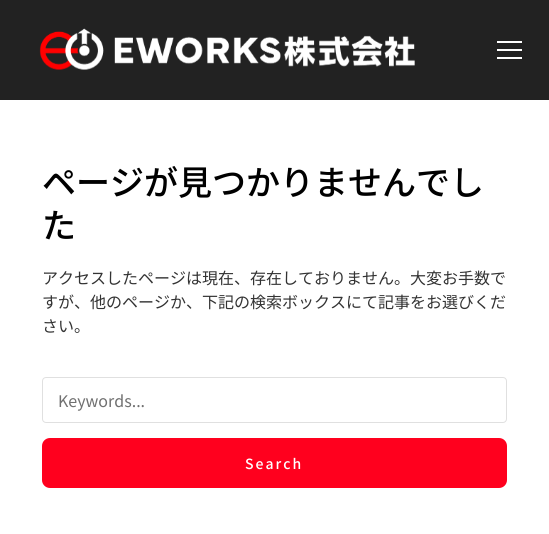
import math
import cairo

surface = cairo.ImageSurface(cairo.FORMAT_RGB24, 549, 534)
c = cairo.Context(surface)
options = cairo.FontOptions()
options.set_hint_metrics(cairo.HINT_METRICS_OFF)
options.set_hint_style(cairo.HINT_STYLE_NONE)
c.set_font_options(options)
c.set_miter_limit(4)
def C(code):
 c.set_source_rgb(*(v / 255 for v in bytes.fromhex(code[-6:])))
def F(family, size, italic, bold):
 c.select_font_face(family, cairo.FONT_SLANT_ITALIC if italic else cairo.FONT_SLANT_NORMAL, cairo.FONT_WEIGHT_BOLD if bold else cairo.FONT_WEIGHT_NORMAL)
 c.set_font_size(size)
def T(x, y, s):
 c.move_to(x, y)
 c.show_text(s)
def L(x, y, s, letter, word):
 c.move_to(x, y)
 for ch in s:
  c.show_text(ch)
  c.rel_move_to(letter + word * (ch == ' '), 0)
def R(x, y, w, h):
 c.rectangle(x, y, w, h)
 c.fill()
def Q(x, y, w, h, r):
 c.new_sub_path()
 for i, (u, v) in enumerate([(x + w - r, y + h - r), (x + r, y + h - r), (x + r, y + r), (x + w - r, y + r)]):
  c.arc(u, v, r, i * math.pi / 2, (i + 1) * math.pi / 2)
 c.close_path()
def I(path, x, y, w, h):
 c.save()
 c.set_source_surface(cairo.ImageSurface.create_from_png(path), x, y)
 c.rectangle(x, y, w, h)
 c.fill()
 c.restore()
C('ffffff')
c.paint()
C('222222')
R(0,0,549,100)
I('1.png',39,28,376,42)
C('ffffff')
R(497,49,25,2)
R(497,41,25,2)
R(497,57,25,2)
F('Noto Sans JP Medium',34,0,0)
C('000000')
T(42,195,'ページが見つかりませんでし')
T(42,238,'た')
F('Noto Sans JP',16,0,0)
C('333333')
T(42,284,'アクセスしたページは現在、存在しておりません。大変お手数で')
T(42,308,'すが、他のページか、下記の検索ボックスにて記事をお選びくだ')
T(42,332,'さい。')
Q(42.5,377.5,464,45,3.5)
C('e0e0e0')
c.set_line_width(1)
c.stroke()
C('707070')
T(58,407,'Keywords...')
C('ff001e')
Q(42,438,465,50,8)
c.fill()
F('Noto Sans JP Medium',14,0,0)
C('ffffff')
L(245,469,'Search',2,0)
surface.write_to_png('o.png')
